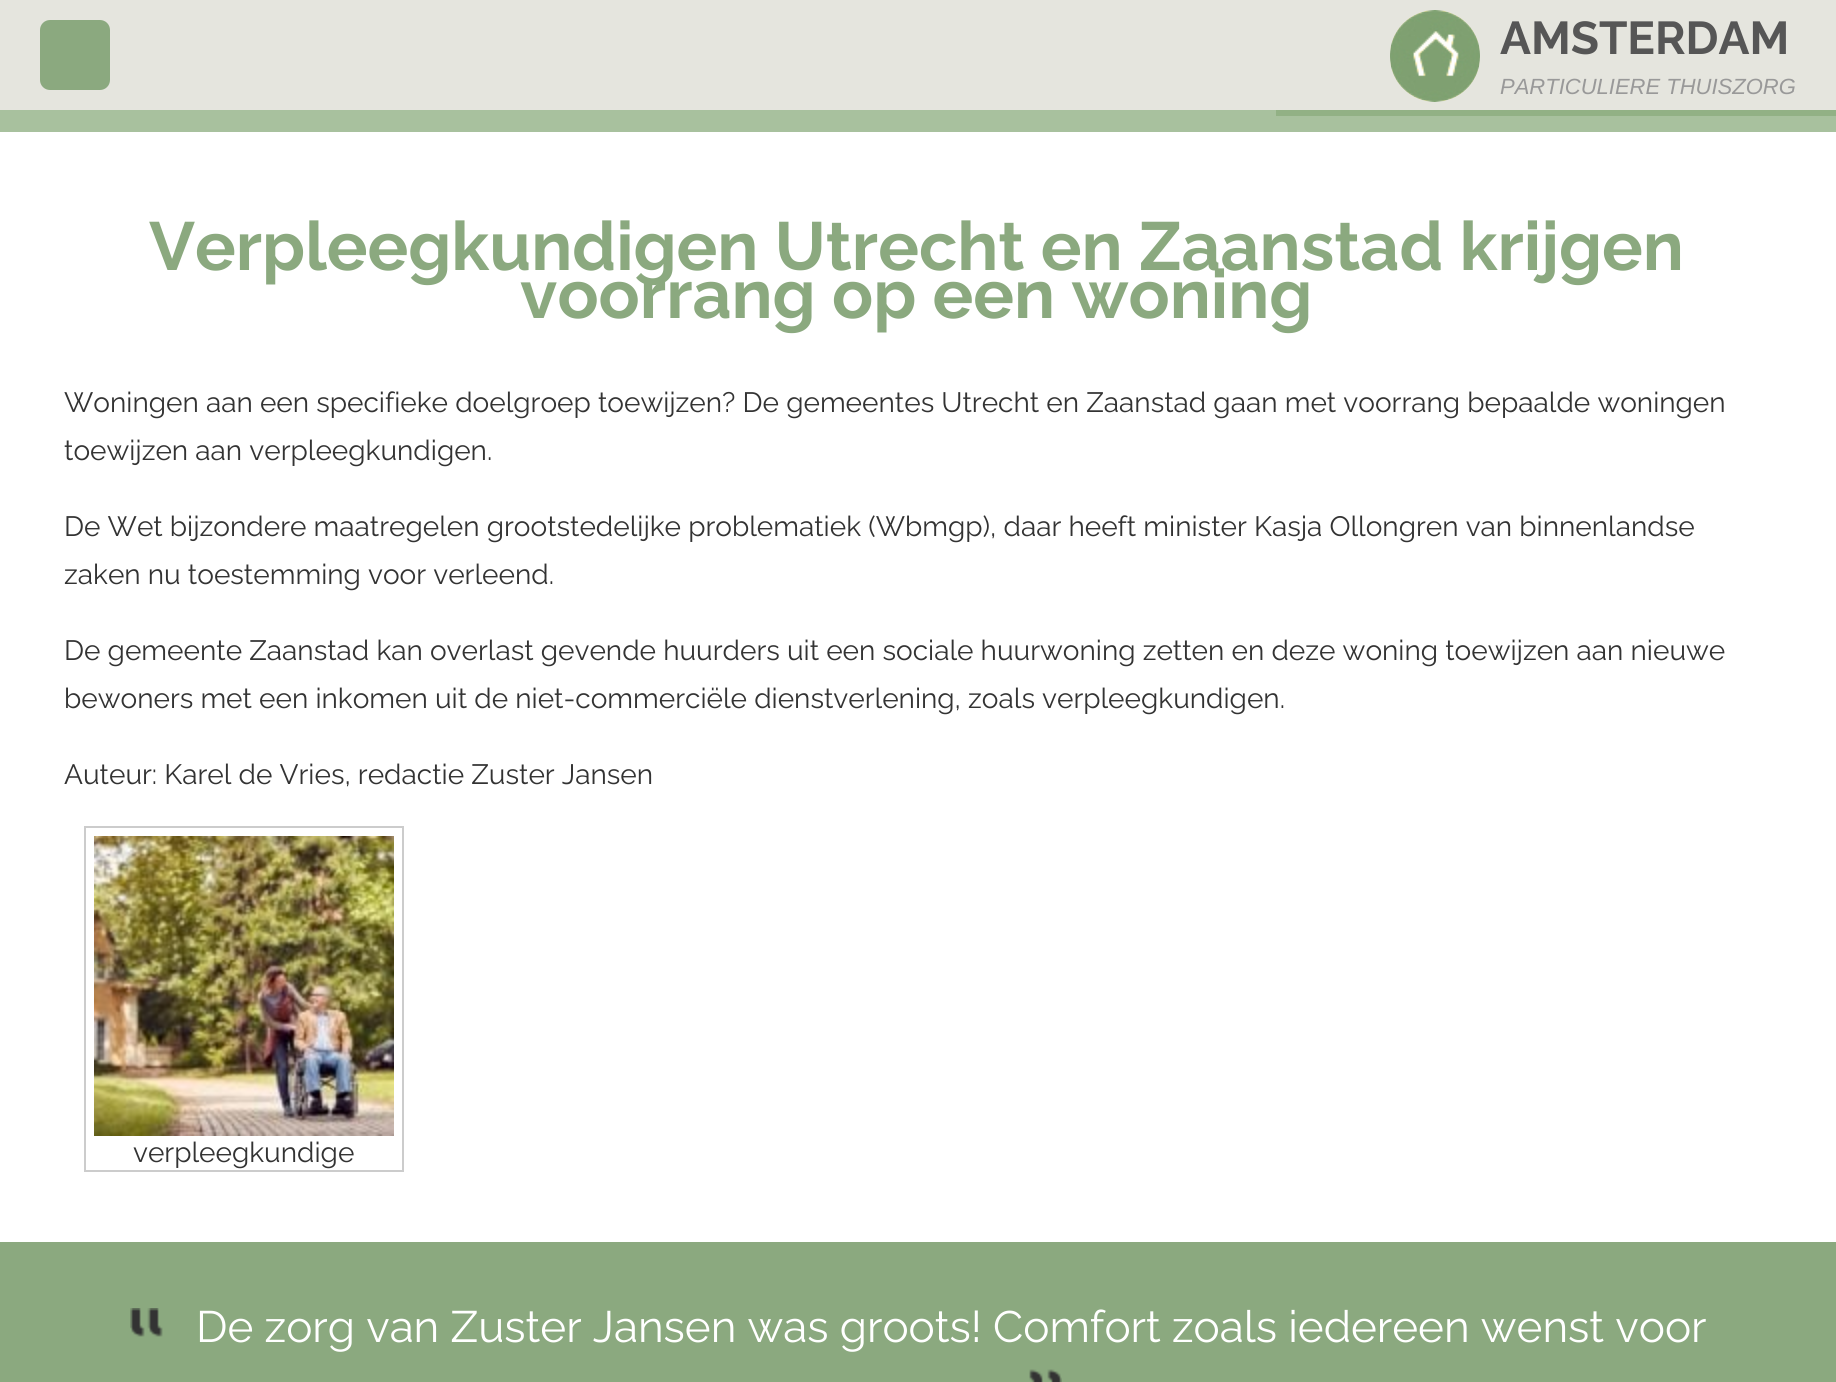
import math
import cairo

surface = cairo.ImageSurface(cairo.FORMAT_RGB24, 1836, 1382)
c = cairo.Context(surface)
options = cairo.FontOptions()
options.set_hint_metrics(cairo.HINT_METRICS_OFF)
options.set_hint_style(cairo.HINT_STYLE_NONE)
c.set_font_options(options)
c.set_miter_limit(4)
def C(code):
 c.set_source_rgb(*(v / 255 for v in bytes.fromhex(code[-6:])))
def F(family, size, italic, bold):
 c.select_font_face(family, cairo.FONT_SLANT_ITALIC if italic else cairo.FONT_SLANT_NORMAL, cairo.FONT_WEIGHT_BOLD if bold else cairo.FONT_WEIGHT_NORMAL)
 c.set_font_size(size)
def T(x, y, s):
 c.move_to(x, y)
 c.show_text(s)
def R(x, y, w, h):
 c.rectangle(x, y, w, h)
 c.fill()
def Q(x, y, w, h, r):
 c.new_sub_path()
 for i, (u, v) in enumerate([(x + w - r, y + h - r), (x + r, y + h - r), (x + r, y + r), (x + w - r, y + r)]):
  c.arc(u, v, r, i * math.pi / 2, (i + 1) * math.pi / 2)
 c.close_path()
def I(path, x, y, w, h):
 c.save()
 c.set_source_surface(cairo.ImageSurface.create_from_png(path), x, y)
 c.rectangle(x, y, w, h)
 c.fill()
 c.restore()
C('ffffff')
c.paint()
C('e5e5de')
R(0,0,1836,110)
C('8ba97f')
Q(40,20,70,70,10)
c.fill()
I('1.png',1390,10,90,92)
F('Raleway',46,0,1)
C('565656')
T(1500,54,'AMSTERDAM')
F('Liberation Sans',22,1,0)
C('999999')
T(1500,94,'PARTICULIERE THUISZORG')
C('a8c19e')
R(0,110,1836,22)
C('92b185')
R(1276,110,560,6)
F('Raleway',68,0,1)
C('8ba97f')
T(149,270,'Verpleegkundigen Utrecht en Zaanstad krijgen')
T(520,318,'voorrang op een woning')
F('Raleway',28,0,0)
C('333333')
T(64,412,'Woningen aan een specifieke doelgroep toewijzen? De gemeentes Utrecht en Zaanstad gaan met voorrang bepaalde woningen')
T(64,460,'toewijzen aan verpleegkundigen.')
T(64,536,'De Wet bijzondere maatregelen grootstedelijke problematiek (Wbmgp), daar heeft minister Kasja Ollongren van binnenlandse')
T(64,584,'zaken nu toestemming voor verleend.')
T(64,660,'De gemeente Zaanstad kan overlast gevende huurders uit een sociale huurwoning zetten en deze woning toewijzen aan nieuwe')
T(64,708,'bewoners met een inkomen uit de niet-commerciële dienstverlening, zoals verpleegkundigen.')
T(64,784,'Auteur: Karel de Vries, redactie Zuster Jansen')
c.rectangle(85,827,318,344)
C('cccccc')
c.stroke()
I('2.png',94,836,300,300)
C('333333')
T(133,1162,'verpleegkundige')
C('8ba97f')
R(0,1242,1836,140)
I('3.png',130,1308,33,29)
F('Raleway',44,0,0)
C('ffffff')
T(196,1342,'De zorg van Zuster Jansen was groots! Comfort zoals iedereen wenst voor')
I('4.png',1029,1369,33,13)
surface.write_to_png('o.png')
